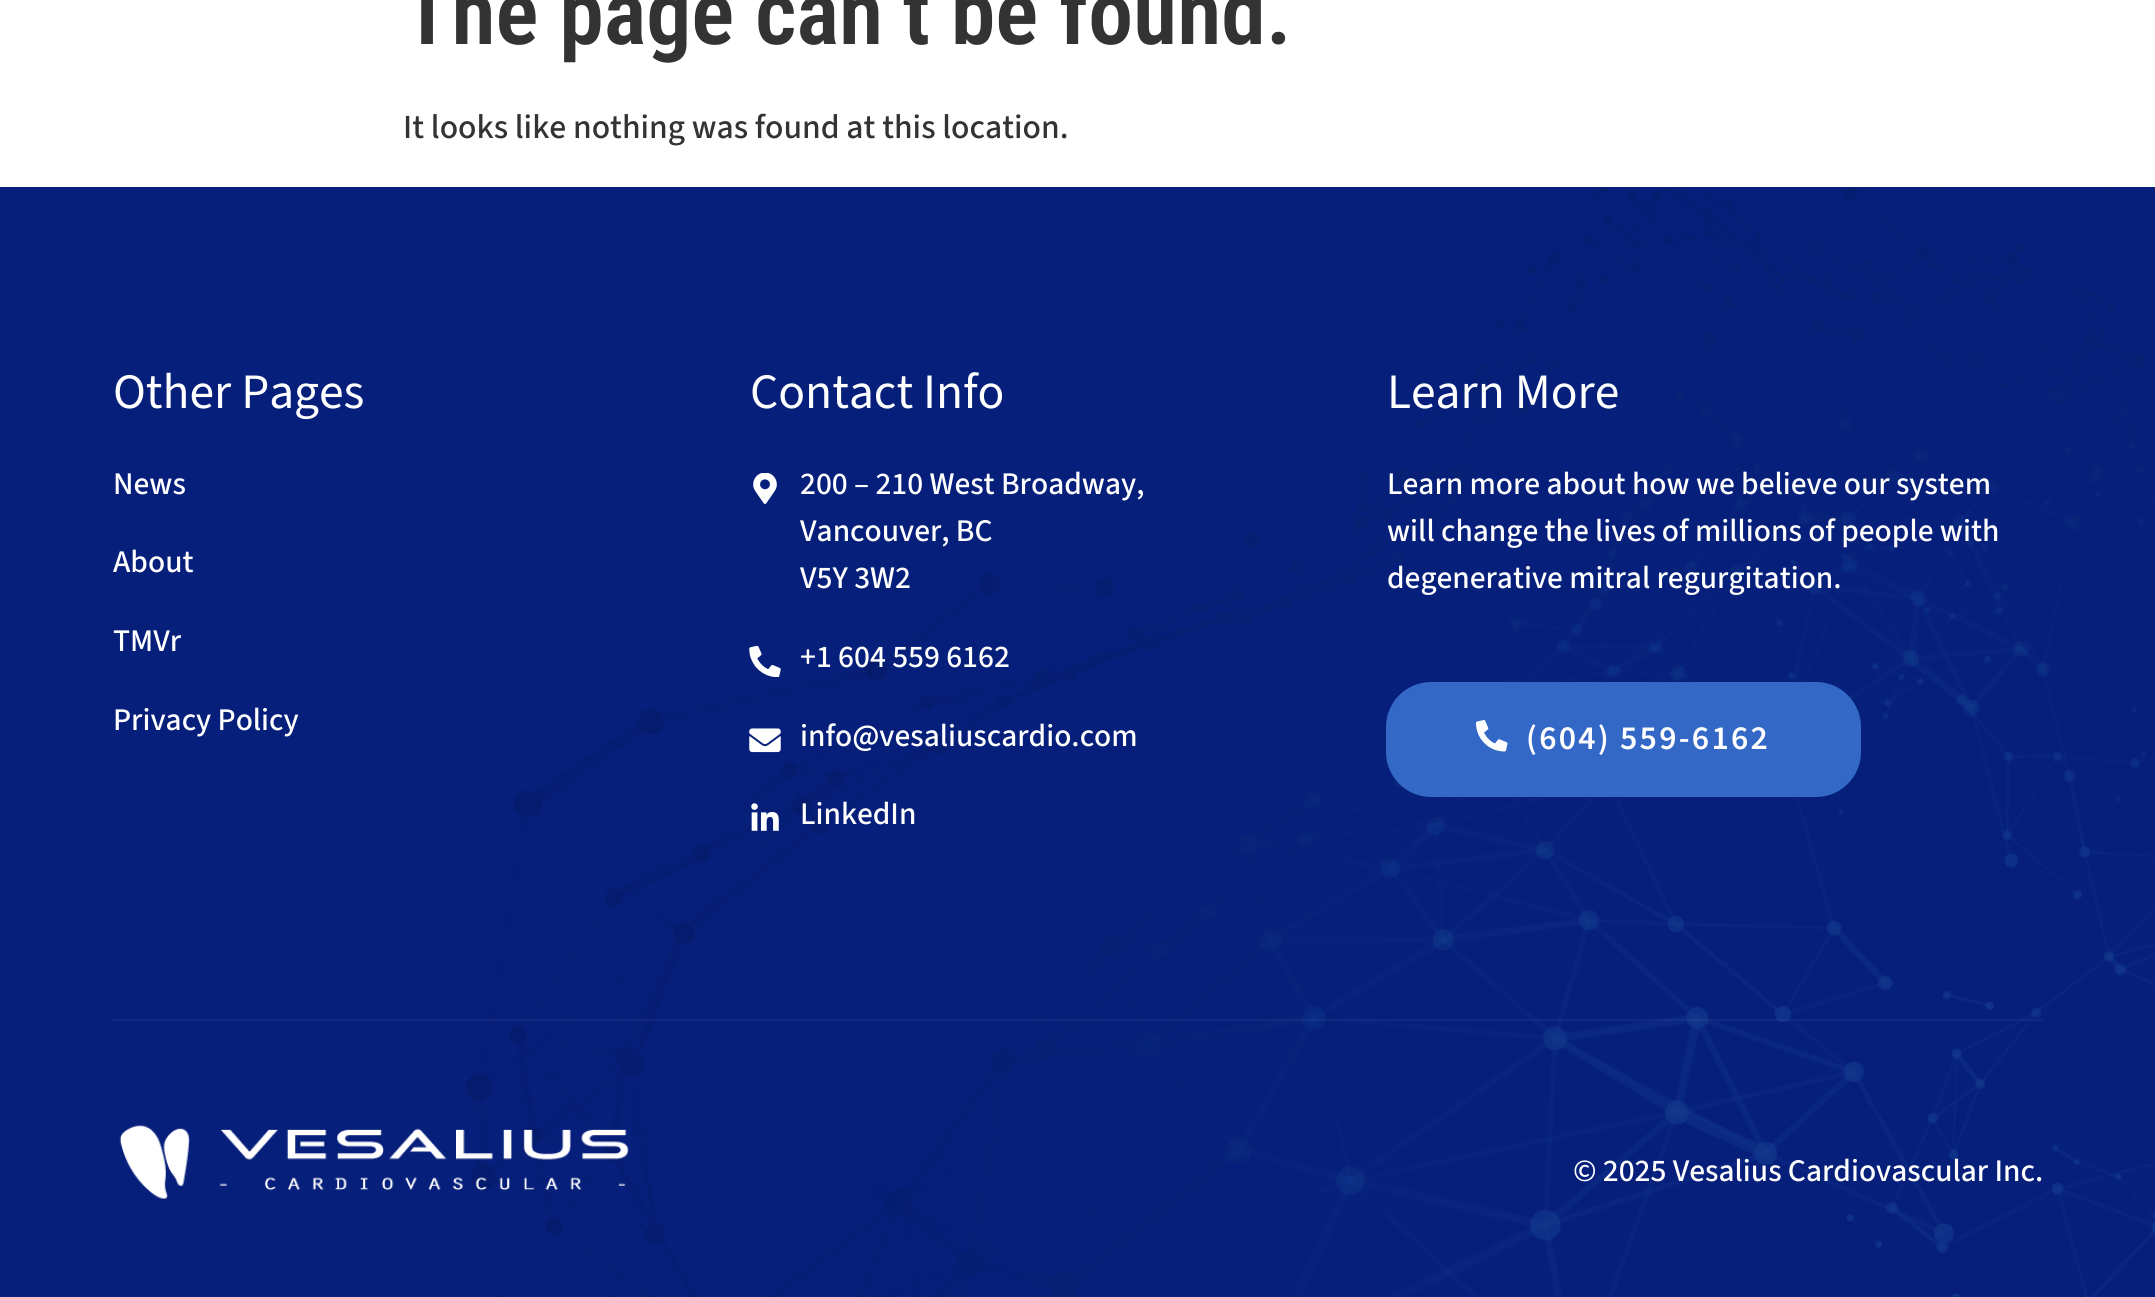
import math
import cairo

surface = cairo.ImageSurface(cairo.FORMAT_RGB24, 2155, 1297)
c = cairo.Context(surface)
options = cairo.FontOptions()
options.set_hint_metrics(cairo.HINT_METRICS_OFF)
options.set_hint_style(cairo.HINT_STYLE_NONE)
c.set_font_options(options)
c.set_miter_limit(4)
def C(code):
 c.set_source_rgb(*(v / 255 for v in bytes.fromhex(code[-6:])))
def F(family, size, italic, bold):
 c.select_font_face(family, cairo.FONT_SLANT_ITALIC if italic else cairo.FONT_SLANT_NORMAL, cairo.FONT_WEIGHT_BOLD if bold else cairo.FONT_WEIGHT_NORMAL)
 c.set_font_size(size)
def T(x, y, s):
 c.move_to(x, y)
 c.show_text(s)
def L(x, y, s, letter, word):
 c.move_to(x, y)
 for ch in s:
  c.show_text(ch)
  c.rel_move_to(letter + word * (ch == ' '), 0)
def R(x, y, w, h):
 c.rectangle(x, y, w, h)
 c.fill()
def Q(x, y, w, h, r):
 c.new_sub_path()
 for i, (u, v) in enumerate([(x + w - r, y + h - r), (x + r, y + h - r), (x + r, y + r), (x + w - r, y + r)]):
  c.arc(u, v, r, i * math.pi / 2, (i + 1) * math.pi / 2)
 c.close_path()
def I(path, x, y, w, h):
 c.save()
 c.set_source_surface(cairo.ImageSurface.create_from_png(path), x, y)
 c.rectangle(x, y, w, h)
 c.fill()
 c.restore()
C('ffffff')
c.paint()
F('Roboto Condensed SemiBold',90,0,0)
C('333333')
T(403,44,'The page can’t be found.')
F('Source Sans 3 Medium',33.75,0,0)
T(403,138,'It looks like nothing was found at this location.')
C('061f7b')
R(0,187,2155,1110)
I('1.png',466,187,1689,1110)
F('Source Sans 3',49.5,0,0)
C('ffffff')
T(113,408,'Other Pages')
F('Source Sans 3 Medium',31.5,0,0)
T(113,494,'News')
T(113,572,'About')
T(113,651,'TMVr')
T(113,730,'Privacy Policy')
F('Source Sans 3',49.5,0,0)
T(750,408,'Contact Info')
I('2.png',753,473,24,31)
F('Source Sans 3 Medium',31.5,0,0)
T(800,494,'200 – 210 West Broadway,')
T(800,541,'Vancouver, BC')
T(800,588,'V5Y 3W2')
I('3.png',749,646,32,31)
T(800,667,'+1 604 559 6162')
I('4.png',749,728,32,25)
T(800,746,'info@vesaliuscardio.com')
I('5.png',751,803,28,28)
T(800,824,'LinkedIn')
F('Source Sans 3',49.5,0,0)
T(1387,408,'Learn More')
F('Source Sans 3 Medium',31.5,0,0)
T(1387,494,'Learn more about how we believe our system')
T(1387,541,'will change the lives of millions of people with')
T(1387,588,'degenerative mitral regurgitation.')
C('3368c6')
Q(1386,682,475,115,45)
c.fill()
I('6.png',1476,720,32,32)
F('Source Sans 3 SemiBold',33.75,0,0)
C('ffffff')
L(1526,749,'(604) 559-6162',2.25,0)
c.set_source_rgba(0.541,0.569,0.675,0.08)
R(113,1019,1930,2)
I('7.png',119,1125,510,74)
F('Source Sans 3 Medium',31.5,0,0)
C('ffffff')
T(1573,1181,'© 2025 Vesalius Cardiovascular Inc.')
surface.write_to_png('o.png')
